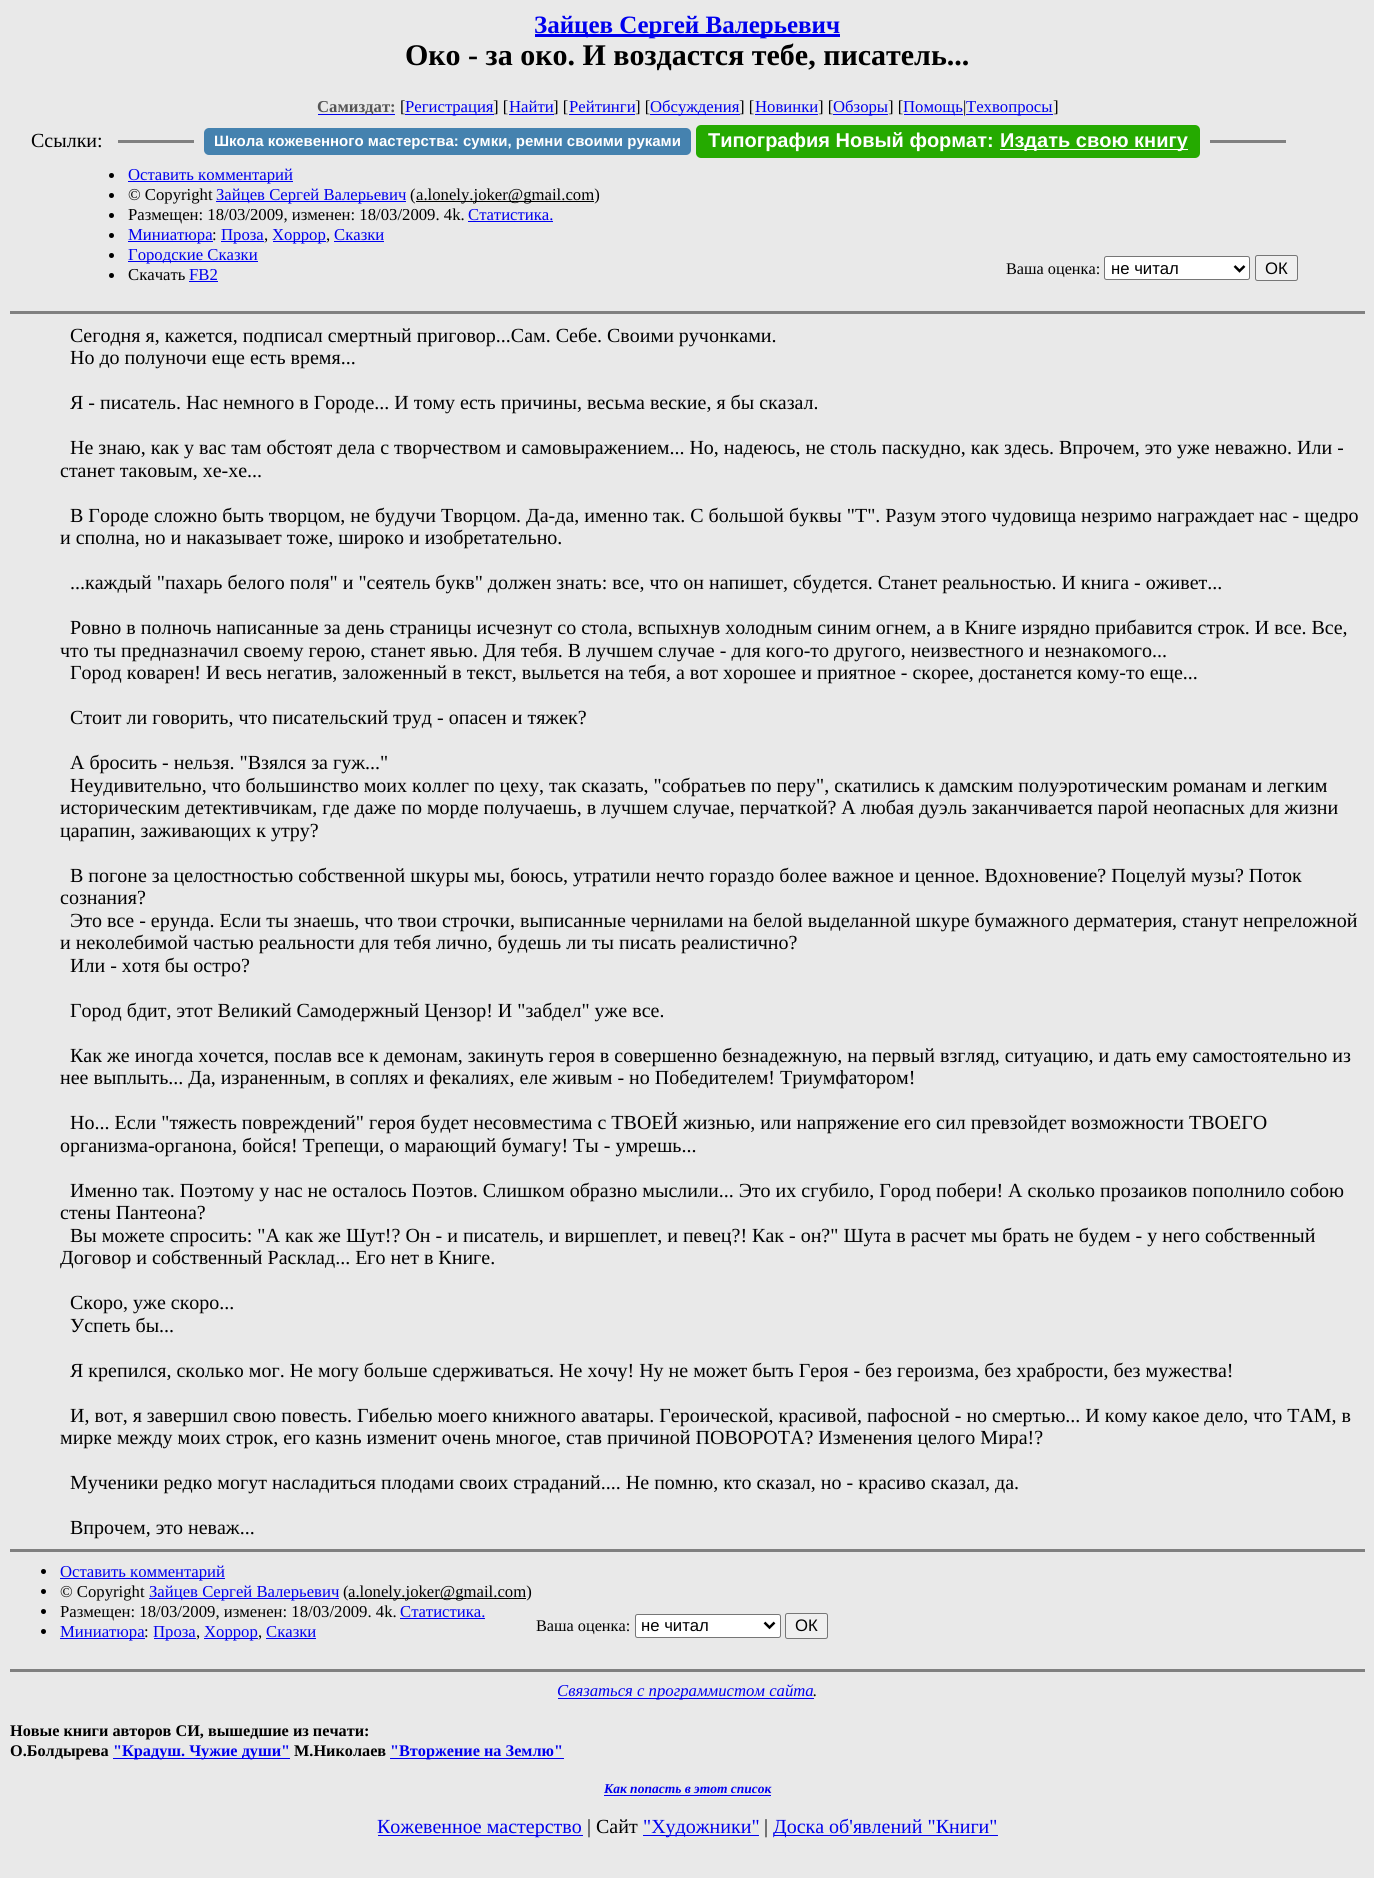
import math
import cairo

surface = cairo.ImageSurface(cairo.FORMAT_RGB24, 1374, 1878)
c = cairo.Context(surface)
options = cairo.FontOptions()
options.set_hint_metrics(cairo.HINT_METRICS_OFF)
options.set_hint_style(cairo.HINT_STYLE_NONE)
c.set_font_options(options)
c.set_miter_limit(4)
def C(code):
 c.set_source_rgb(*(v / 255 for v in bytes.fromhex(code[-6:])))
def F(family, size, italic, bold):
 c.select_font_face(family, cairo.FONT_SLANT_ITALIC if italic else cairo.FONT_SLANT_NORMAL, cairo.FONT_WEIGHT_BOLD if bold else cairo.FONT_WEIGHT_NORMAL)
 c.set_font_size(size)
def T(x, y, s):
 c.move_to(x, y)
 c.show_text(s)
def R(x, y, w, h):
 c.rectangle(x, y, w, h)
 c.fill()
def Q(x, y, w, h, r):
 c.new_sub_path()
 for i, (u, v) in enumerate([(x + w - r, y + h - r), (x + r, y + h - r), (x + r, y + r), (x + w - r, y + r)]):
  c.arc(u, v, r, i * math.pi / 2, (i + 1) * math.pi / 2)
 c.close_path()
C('e9e9e9')
c.paint()
C('0000ee')
R(535,34,305,3)
F('Liberation Serif',25,0,1)
T(534,33,'Зайцев Сергей Валерьевич')
F('Liberation Serif',30,0,1)
C('000000')
T(405,65,'Око - за око. И воздастся тебе, писатель...')
C('0000ee')
R(318,114,77,1)
F('Liberation Serif',16.7,0,1)
C('555555')
T(317,112,'Самиздат:')
F('Liberation Serif',16.7,0,0)
C('000000')
T(400,112,'[')
C('0000ee')
R(405,114,89,1)
T(405,112,'Регистрация')
C('000000')
T(493,112,'] [')
C('0000ee')
R(509,114,45,1)
T(509,112,'Найти')
C('000000')
T(553,112,'] [')
C('0000ee')
T(569,112,'Рейтинги')
C('000000')
T(635,112,'] [')
C('0000ee')
R(569,114,66,1)
R(650,114,90,1)
T(650,112,'Обсуждения')
C('000000')
T(739,112,'] [')
C('0000ee')
R(755,114,63,1)
T(755,112,'Новинки')
C('000000')
T(818,112,'] [')
C('0000ee')
R(833,114,55,1)
T(833,112,'Обзоры')
C('000000')
T(888,112,'] [')
C('0000ee')
R(904,114,59,1)
T(903,112,'Помощь')
C('000000')
T(963,112,'|')
C('0000ee')
R(966,114,87,1)
T(966,112,'Техвопросы')
C('000000')
T(1053,112,']')
F('Liberation Serif',20,0,0)
T(31,147,'Ссылки:')
C('808080')
R(118,140,76,3)
C('4582af')
Q(204,128,487,27,5)
c.fill()
F('Liberation Sans',15,0,1)
C('ffffff')
T(214,146,'Школа кожевенного мастерства: сумки, ремни своими руками')
C('25aa00')
Q(696,125,504,33,5)
c.fill()
F('Liberation Sans',20,0,1)
C('ffffff')
T(708,147,'Типография Новый формат:')
R(1000,149,188,1)
T(1000,147,'Издать свою книгу')
C('808080')
R(1210,140,76,3)
C('000000')
c.new_path()
c.arc(111.5,175.5,2.5,0,2 * math.pi)
c.fill()
C('0000ee')
R(128,181,165,1)
F('Liberation Serif',16.7,0,0)
T(128,180,'Оставить комментарий')
C('000000')
c.new_path()
c.arc(111.5,195.5,2.5,0,2 * math.pi)
c.fill()
T(128,200,'© Copyright')
C('0000ee')
R(216,201,190,1)
T(216,200,'Зайцев Сергей Валерьевич')
C('000000')
T(410,200,'(')
R(416,201,178,1)
T(416,200,'a.lonely.joker@gmail.com)')
c.new_path()
c.arc(111.5,215.5,2.5,0,2 * math.pi)
c.fill()
T(128,220,'Размещен: 18/03/2009, изменен: 18/03/2009. 4k.')
C('0000ee')
T(468,220,'Статистика.')
R(468,221,85,1)
C('000000')
c.new_path()
c.arc(111.5,235.5,2.5,0,2 * math.pi)
c.fill()
C('0000ee')
R(128,241,85,1)
T(128,240,'Миниатюра')
C('000000')
T(212,240,':')
C('0000ee')
R(221,241,43,1)
T(221,240,'Проза')
R(273,241,53,1)
T(272,240,'Хоррор')
T(334,240,'Сказки')
R(334,241,50,1)
C('000000')
T(264,240,',')
T(326,240,',')
c.new_path()
c.arc(111.5,255.5,2.5,0,2 * math.pi)
c.fill()
C('0000ee')
R(128,261,130,1)
T(128,260,'Городские Сказки')
C('000000')
c.new_path()
c.arc(111.5,275.5,2.5,0,2 * math.pi)
c.fill()
T(128,280,'Скачать')
C('0000ee')
T(189,280,'FB2')
R(189,281,29,1)
F('Liberation Serif',16.25,0,0)
C('000000')
T(1006,274,'Ваша оценка:')
C('ffffff')
Q(1104.5,256.5,145,23,2)
c.fill_preserve()
C('767676')
c.set_line_width(1)
c.stroke()
c.new_path()
c.move_to(1234.5,266)
c.line_to(1239.5,271)
c.line_to(1244.5,266)
C('000000')
c.set_line_width(2.5)
c.stroke()
F('Liberation Sans',16.7,0,0)
T(1111,274,'не читал')
C('efefef')
Q(1255.5,255.5,42,25,2)
c.fill_preserve()
C('767676')
c.set_line_width(1)
c.stroke()
C('000000')
T(1265,274,'ОК')
C('808080')
R(10,311,1355,3)
F('Liberation Serif',20,0,0)
C('000000')
T(70,342,'Сегодня я, кажется, подписал смертный приговор...Сам. Себе. Своими ручонками.')
T(70,364,'Но до полуночи еще есть время...')
T(70,409,'Я - писатель. Нас немного в Городе... И тому есть причины, весьма веские, я бы сказал.')
T(70,454,'Не знаю, как у вас там обстоят дела с творчеством и самовыражением... Но, надеюсь, не столь паскудно, как здесь. Впрочем, это уже неважно. Или -')
T(60,477,'станет таковым, хе-хе...')
T(70,522,'В Городе сложно быть творцом, не будучи Творцом. Да-да, именно так. С большой буквы "Т". Разум этого чудовища незримо награждает нас - щедро')
T(60,544,'и сполна, но и наказывает тоже, широко и изобретательно.')
T(70,589,'...каждый "пахарь белого поля" и "сеятель букв" должен знать: все, что он напишет, сбудется. Станет реальностью. И книга - оживет...')
T(70,634,'Ровно в полночь написанные за день страницы исчезнут со стола, вспыхнув холодным синим огнем, а в Книге изрядно прибавится строк. И все. Все,')
T(60,657,'что ты предназначил своему герою, станет явью. Для тебя. В лучшем случае - для кого-то другого, неизвестного и незнакомого...')
T(70,679,'Город коварен! И весь негатив, заложенный в текст, выльется на тебя, а вот хорошее и приятное - скорее, достанется кому-то еще...')
T(70,724,'Стоит ли говорить, что писательский труд - опасен и тяжек?')
T(70,769,'А бросить - нельзя. "Взялся за гуж..."')
T(70,792,'Неудивительно, что большинство моих коллег по цеху, так сказать, "собратьев по перу", скатились к дамским полуэротическим романам и легким')
T(60,814,'историческим детективчикам, где даже по морде получаешь, в лучшем случае, перчаткой? А любая дуэль заканчивается парой неопасных для жизни')
T(60,837,'царапин, заживающих к утру?')
T(70,882,'В погоне за целостностью собственной шкуры мы, боюсь, утратили нечто гораздо более важное и ценное. Вдохновение? Поцелуй музы? Поток')
T(60,904,'сознания?')
T(70,927,'Это все - ерунда. Если ты знаешь, что твои строчки, выписанные чернилами на белой выделанной шкуре бумажного дерматерия, станут непреложной')
T(60,949,'и неколебимой частью реальности для тебя лично, будешь ли ты писать реалистично?')
T(70,972,'Или - хотя бы остро?')
T(70,1017,'Город бдит, этот Великий Самодержный Цензор! И "забдел" уже все.')
T(70,1062,'Как же иногда хочется, послав все к демонам, закинуть героя в совершенно безнадежную, на первый взгляд, ситуацию, и дать ему самостоятельно из')
T(60,1084,'нее выплыть... Да, израненным, в соплях и фекалиях, еле живым - но Победителем! Триумфатором!')
T(70,1129,'Но... Если "тяжесть повреждений" героя будет несовместима с ТВОЕЙ жизнью, или напряжение его сил превзойдет возможности ТВОЕГО')
T(60,1152,'организма-органона, бойся! Трепещи, о марающий бумагу! Ты - умрешь...')
T(70,1197,'Именно так. Поэтому у нас не осталось Поэтов. Слишком образно мыслили... Это их сгубило, Город побери! А сколько прозаиков пополнило собою')
T(60,1219,'стены Пантеона?')
T(70,1242,'Вы можете спросить: "А как же Шут!? Он - и писатель, и виршеплет, и певец?! Как - он?" Шута в расчет мы брать не будем - у него собственный')
T(60,1264,'Договор и собственный Расклад... Его нет в Книге.')
T(70,1309,'Скоро, уже скоро...')
T(70,1332,'Успеть бы...')
T(70,1377,'Я крепился, сколько мог. Не могу больше сдерживаться. Не хочу! Ну не может быть Героя - без героизма, без храбрости, без мужества!')
T(70,1422,'И, вот, я завершил свою повесть. Гибелью моего книжного аватары. Героической, красивой, пафосной - но смертью... И кому какое дело, что ТАМ, в')
T(60,1444,'мирке между моих строк, его казнь изменит очень многое, став причиной ПОВОРОТА? Изменения целого Мира!?')
T(70,1489,'Мученики редко могут насладиться плодами своих страданий.... Не помню, кто сказал, но - красиво сказал, да.')
T(70,1534,'Впрочем, это неваж...')
C('808080')
R(10,1549,1355,3)
C('000000')
c.new_path()
c.arc(43.5,1571.5,2.5,0,2 * math.pi)
c.fill()
C('0000ee')
R(60,1578,165,1)
F('Liberation Serif',16.7,0,0)
T(60,1577,'Оставить комментарий')
C('000000')
c.new_path()
c.arc(43.5,1591.5,2.5,0,2 * math.pi)
c.fill()
T(60,1597,'© Copyright')
C('0000ee')
R(149,1598,190,1)
T(149,1597,'Зайцев Сергей Валерьевич')
C('000000')
T(343,1597,'(')
R(349,1598,177,1)
T(348,1597,'a.lonely.joker@gmail.com)')
c.new_path()
c.arc(43.5,1611.5,2.5,0,2 * math.pi)
c.fill()
T(60,1617,'Размещен: 18/03/2009, изменен: 18/03/2009. 4k.')
C('0000ee')
T(400,1617,'Статистика.')
R(400,1618,85,1)
C('000000')
c.new_path()
c.arc(43.5,1631.5,2.5,0,2 * math.pi)
c.fill()
C('0000ee')
R(60,1638,85,1)
T(60,1637,'Миниатюра')
C('000000')
T(144,1637,':')
C('0000ee')
R(154,1638,42,1)
T(153,1637,'Проза')
C('000000')
T(196,1637,',')
C('0000ee')
R(204,1638,54,1)
T(204,1637,'Хоррор')
C('000000')
T(258,1637,',')
C('0000ee')
T(266,1637,'Сказки')
R(266,1638,50,1)
F('Liberation Serif',16.25,0,0)
C('000000')
T(536,1631,'Ваша оценка:')
C('ffffff')
Q(635.5,1614.5,145,23,2)
c.fill_preserve()
C('767676')
c.stroke()
c.new_path()
c.move_to(764.5,1622.5)
c.line_to(769.5,1627.5)
c.line_to(774.5,1622.5)
C('000000')
c.set_line_width(2.5)
c.stroke()
F('Liberation Sans',16.7,0,0)
T(641,1631,'не читал')
C('efefef')
Q(785.5,1613.5,42,25,2)
c.fill_preserve()
C('767676')
c.set_line_width(1)
c.stroke()
C('000000')
T(795,1631,'ОК')
C('808080')
R(10,1669,1355,3)
C('0000ee')
R(558,1698,256,1)
F('Liberation Serif',16.7,1,0)
T(557,1696,'Связаться с программистом сайта')
C('000000')
T(813,1696,'.')
F('Liberation Serif',16.25,0,1)
T(10,1736,'Новые книги авторов СИ, вышедшие из печати:')
T(10,1756,'О.Болдырева')
C('0000ee')
R(113,1758,177,1)
T(113,1756,'"Крадуш. Чужие души"')
C('000000')
T(294,1756,'М.Николаев')
C('0000ee')
R(390,1758,174,1)
T(390,1756,'"Вторжение на Землю"')
F('Liberation Serif',13.5,1,1)
T(604,1793,'Как попасть в этoт список')
R(604,1795,167,1)
R(378,1835,205,1)
F('Liberation Serif',20,0,0)
T(377,1833,'Кожевенное мастерство')
C('000000')
T(587,1833,'| Сайт')
C('0000ee')
R(643,1835,116,1)
T(643,1833,'"Художники"')
C('000000')
T(764,1833,'|')
C('0000ee')
R(774,1835,224,1)
T(773,1833,'Доска об\'явлений "Книги"')
surface.write_to_png('o.png')
